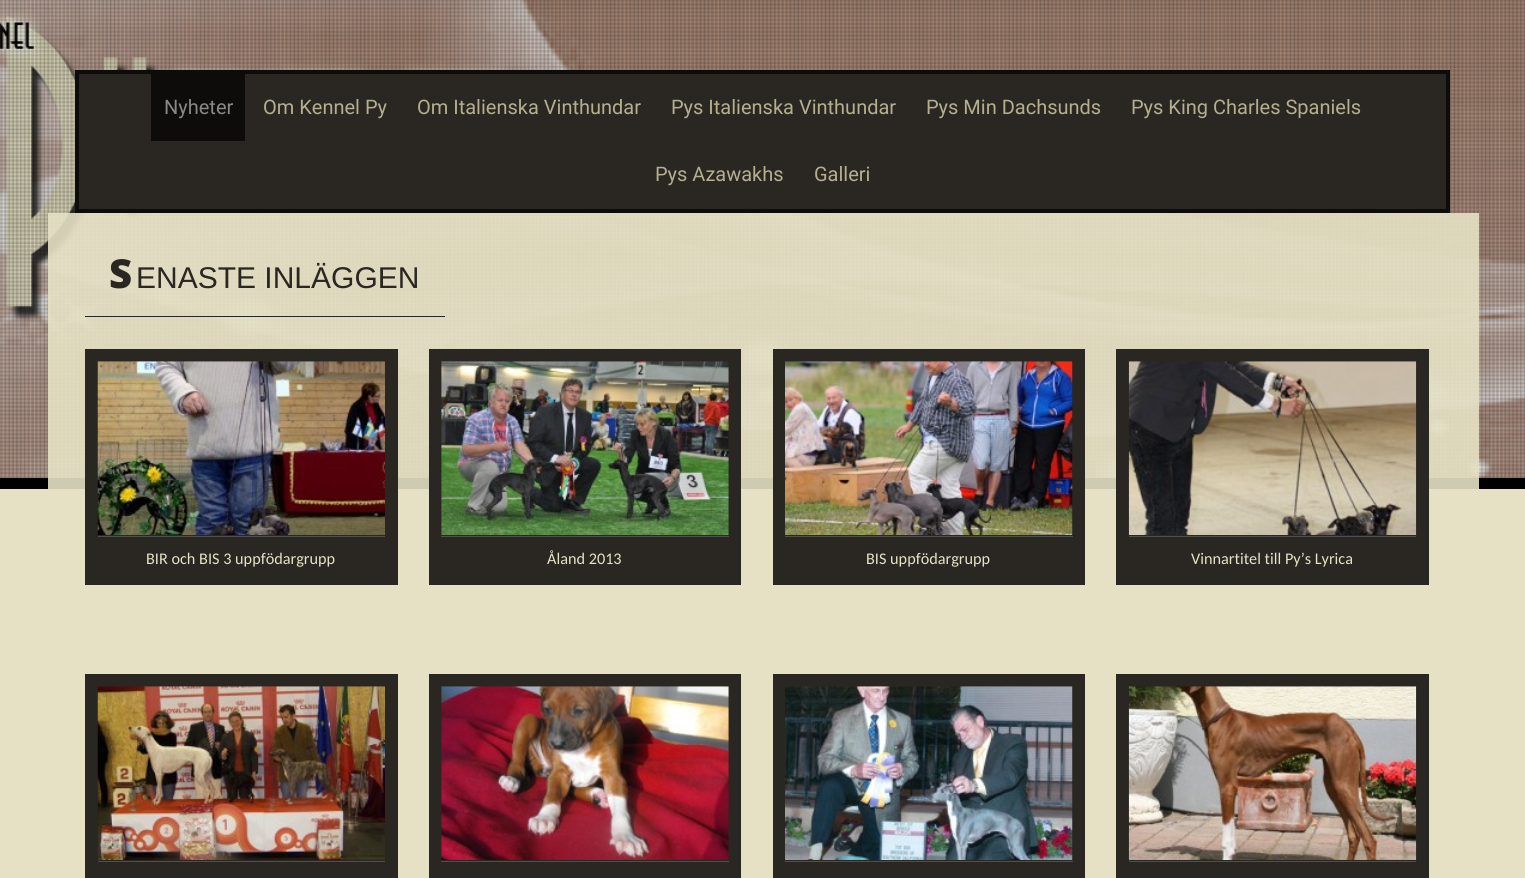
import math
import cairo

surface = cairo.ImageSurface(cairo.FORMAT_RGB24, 1525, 878)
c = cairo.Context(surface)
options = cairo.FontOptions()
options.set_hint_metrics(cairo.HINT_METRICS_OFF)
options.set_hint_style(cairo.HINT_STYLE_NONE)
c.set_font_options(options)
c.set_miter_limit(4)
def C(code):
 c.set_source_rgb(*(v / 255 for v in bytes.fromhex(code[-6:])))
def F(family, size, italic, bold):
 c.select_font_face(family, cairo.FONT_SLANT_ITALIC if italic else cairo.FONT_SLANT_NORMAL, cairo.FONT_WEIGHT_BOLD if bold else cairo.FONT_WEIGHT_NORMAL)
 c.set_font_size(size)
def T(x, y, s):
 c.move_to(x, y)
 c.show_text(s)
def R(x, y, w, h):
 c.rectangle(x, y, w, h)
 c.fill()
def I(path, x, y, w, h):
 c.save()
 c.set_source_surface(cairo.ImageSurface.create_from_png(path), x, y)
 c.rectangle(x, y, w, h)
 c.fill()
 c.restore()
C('e6e1c4')
c.paint()
I('1.png',0,0,1525,478)
I('2.png',0,0,1525,478)
C('000000')
R(0,478,1525,11)
c.rectangle(77,72,1371,139)
C('0e0c0b')
c.set_line_width(4)
c.stroke()
C('2a2622')
R(79,74,1367,135)
C('0e0c0b')
R(151,74,94,67)
F('Roboto',20,0,0)
C('888888')
T(164,114,'Nyheter')
C('b5af8f')
T(263,114,'Om Kennel Py')
T(417,114,'Om Italienska Vinthundar')
T(671,114,'Pys Italienska Vinthundar')
T(926,114,'Pys Min Dachsunds')
T(1131,114,'Pys King Charles Spaniels')
T(655,181,'Pys Azawakhs')
T(814,181,'Galleri')
c.set_source_rgba(0.902,0.882,0.769,0.9)
R(48,213,1431,276)
C('2a2622')
R(85,316,360,1)
F('Noto Sans Black',40,0,0)
T(109,288,'S')
F('Liberation Sans',30,0,0)
T(136,288,'ENASTE INLÄGGEN')
R(85,349,313,236)
I('3.png',97,361,288,174)
C('4f4f4f')
R(98,536,287,1)
F('Carlito',16.25,0,0)
C('e7e2c5')
T(146,564,'BIR och BIS 3 uppfödargrupp')
C('2a2622')
R(429,349,312,236)
I('4.png',441,361,288,174)
C('4f4f4f')
R(441,536,288,1)
C('e7e2c5')
T(547,564,'Åland 2013')
C('2a2622')
R(773,349,312,236)
I('5.png',785,361,288,174)
C('4f4f4f')
R(785,536,288,1)
C('e7e2c5')
T(866,564,'BIS uppfödargrupp')
C('2a2622')
R(1116,349,313,236)
I('6.png',1128,361,289,174)
C('4f4f4f')
R(1129,536,287,1)
C('e7e2c5')
T(1191,564,'Vinnartitel till Py’s Lyrica')
C('2a2622')
R(85,674,313,204)
I('7.png',97,686,288,174)
C('4f4f4f')
R(98,861,287,1)
C('2a2622')
R(429,674,312,204)
I('8.png',441,686,288,174)
C('4f4f4f')
R(441,861,288,1)
C('2a2622')
R(773,674,312,204)
I('9.png',785,686,288,174)
C('4f4f4f')
R(785,861,288,1)
C('2a2622')
R(1116,674,313,204)
I('10.png',1128,686,289,174)
C('4f4f4f')
R(1129,861,287,1)
surface.write_to_png('o.png')
